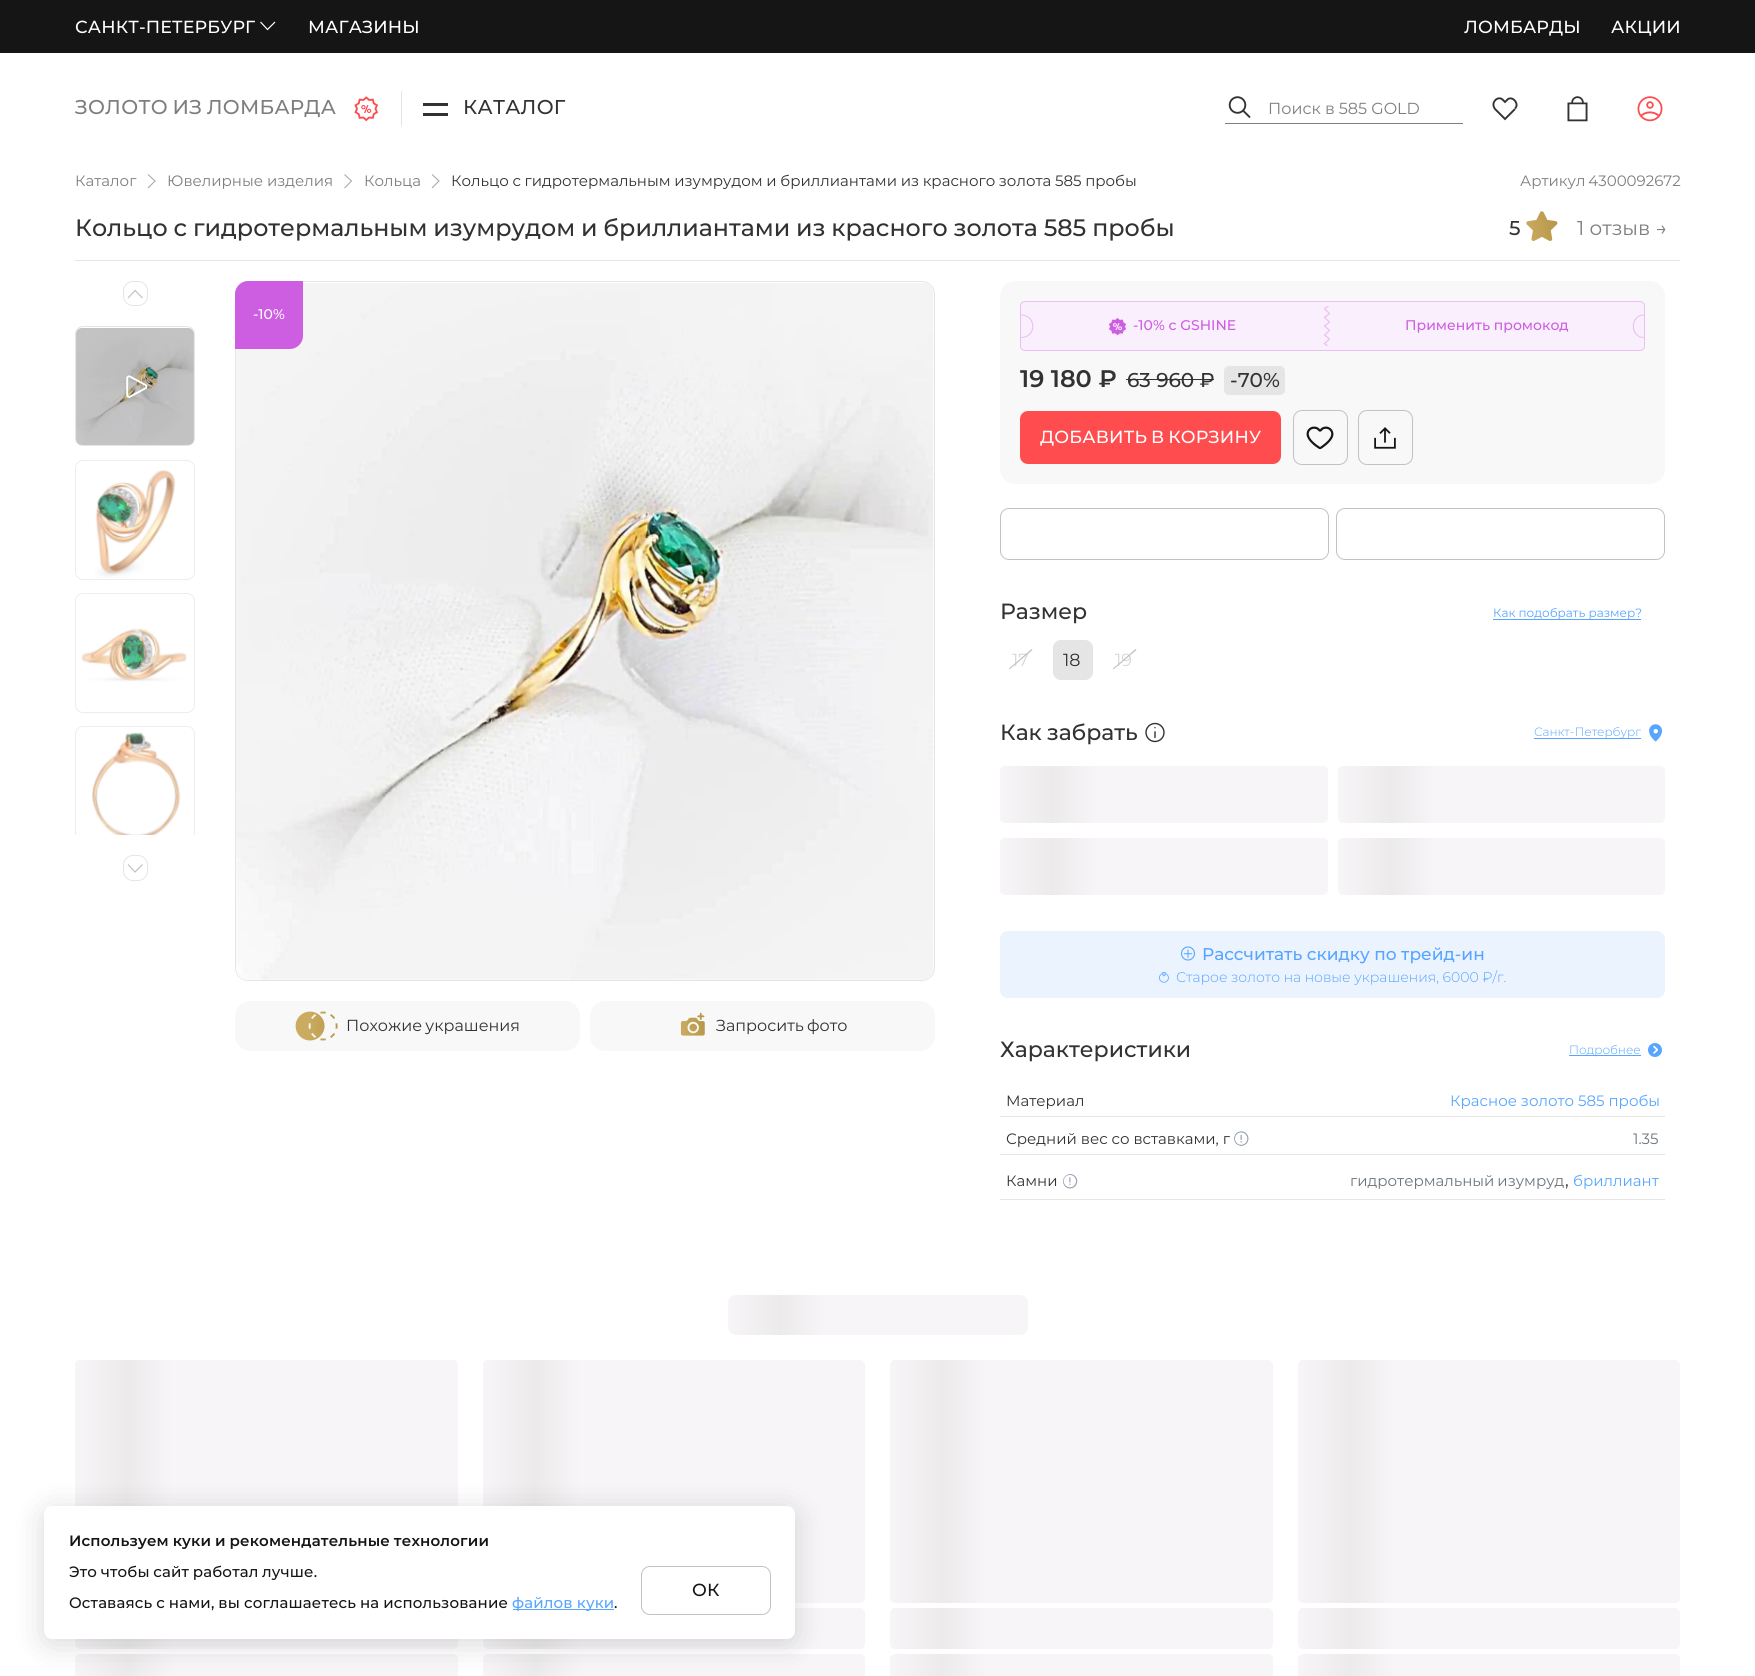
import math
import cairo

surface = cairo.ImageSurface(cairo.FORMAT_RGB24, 1755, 1676)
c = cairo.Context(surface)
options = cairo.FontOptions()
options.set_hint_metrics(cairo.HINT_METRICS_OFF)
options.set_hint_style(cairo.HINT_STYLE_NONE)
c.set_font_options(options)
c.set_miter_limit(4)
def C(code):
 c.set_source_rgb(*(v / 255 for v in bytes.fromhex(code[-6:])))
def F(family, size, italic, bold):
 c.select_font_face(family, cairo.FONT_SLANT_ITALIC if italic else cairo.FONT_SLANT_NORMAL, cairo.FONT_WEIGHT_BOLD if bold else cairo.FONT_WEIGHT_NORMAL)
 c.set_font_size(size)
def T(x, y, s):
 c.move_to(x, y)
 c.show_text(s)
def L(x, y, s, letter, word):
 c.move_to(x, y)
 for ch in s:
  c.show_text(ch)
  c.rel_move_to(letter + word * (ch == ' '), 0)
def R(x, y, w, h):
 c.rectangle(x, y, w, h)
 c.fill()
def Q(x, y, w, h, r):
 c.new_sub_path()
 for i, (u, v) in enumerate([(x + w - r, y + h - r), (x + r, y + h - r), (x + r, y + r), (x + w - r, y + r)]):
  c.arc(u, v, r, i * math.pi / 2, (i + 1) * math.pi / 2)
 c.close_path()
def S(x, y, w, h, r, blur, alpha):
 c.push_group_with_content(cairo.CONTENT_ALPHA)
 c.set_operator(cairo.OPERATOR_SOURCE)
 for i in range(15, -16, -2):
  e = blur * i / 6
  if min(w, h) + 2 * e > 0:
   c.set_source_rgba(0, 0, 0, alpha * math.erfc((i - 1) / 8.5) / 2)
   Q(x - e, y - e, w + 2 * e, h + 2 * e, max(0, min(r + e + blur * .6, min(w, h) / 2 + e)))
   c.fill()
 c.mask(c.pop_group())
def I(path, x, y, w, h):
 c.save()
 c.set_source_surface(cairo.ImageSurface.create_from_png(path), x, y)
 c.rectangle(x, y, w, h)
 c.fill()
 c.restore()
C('ffffff')
c.paint()
C('151515')
R(0,0,1755,53)
F('Montserrat Medium',17.5,0,0)
C('ffffff')
L(75,33,'САНКТ-ПЕТЕРБУРГ',.15,0)
c.new_path()
c.move_to(260.5,22)
c.line_to(267.5,29.5)
c.line_to(275,22)
c.set_line_width(1.2)
c.stroke()
L(308,33,'МАГАЗИНЫ',.15,0)
L(1464,33,'ЛОМБАРДЫ',.15,0)
L(1611,33,'АКЦИИ',.15,0)
F('Montserrat Medium',20,0,0)
C('7f7d80')
L(75,114,'ЗОЛОТО ИЗ ЛОМБАРДА',.25,-1)
I('1.png',354,96,25,26)
C('e5e5e5')
R(401,91,1,35)
C('323232')
R(423,103,25,3)
R(423,113,25,3)
L(463,114,'КАТАЛОГ',.25,0)
C('7f7d80')
R(1225,123,238,1)
I('2.png',1228,96,23,23)
F('Montserrat',16,0,0)
T(1268,114,'Поиск в 585 GOLD')
c.new_path()
c.move_to(1515,109)
c.line_to(1505,119)
c.line_to(1495,109)
c.curve_to(1494,107.5,1492,104,1495,100.5)
c.curve_to(1497.5,97.5,1501,98,1502.5,99.5)
c.line_to(1505,102)
c.line_to(1508,99)
c.curve_to(1513.5,96,1519.5,104.5,1515,108.5)
C('323232')
c.set_line_width(1.9)
c.stroke()
I('3.png',1567,96,21,26)
I('4.png',1637,96,26,26)
F('Montserrat',15,0,0)
C('7f7d80')
T(75,186,'Каталог')
c.new_path()
c.move_to(148,188)
c.line_to(155,181)
c.line_to(148,174.5)
C('aaaaaa')
c.set_line_width(1.1)
c.stroke()
C('7f7d80')
T(167,186,'Ювелирные изделия')
c.new_path()
c.move_to(344.5,188)
c.line_to(351.5,181)
c.line_to(344.5,174.5)
C('aaaaaa')
c.stroke()
C('7f7d80')
T(364,186,'Кольца')
c.new_path()
c.move_to(432,188)
c.line_to(439,181)
c.line_to(432,174.5)
C('aaaaaa')
c.stroke()
C('323232')
L(451,186,'Кольцо с гидротермальным изумрудом и бриллиантами из красного золота 585 пробы',0,-.25)
C('7f7d80')
L(1520,186,'Артикул 4300092672',0,-1)
F('Montserrat Medium',23.75,0,0)
C('323232')
L(75,236,'Кольцо с гидротермальным изумрудом и бриллиантами из красного золота 585 пробы',0,-.5)
F('Montserrat Medium',20,0,0)
T(1509,235,'5')
I('5.png',1526,211,32,30)
F('Montserrat',20,0,0)
C('7f7d80')
T(1577,235,'1 отзыв →')
C('e5e5e5')
R(75,260,1605,1)
Q(123.5,281.5,24,24,9.5)
c.set_line_width(1)
c.stroke()
c.new_path()
c.move_to(128,298)
c.line_to(135,290.5)
c.line_to(142.5,298)
C('c3c1c1')
c.set_line_width(1.2)
c.stroke()
Q(75.5,326.5,119,119,7.5)
C('e5e5e5')
c.set_line_width(1)
c.stroke()
I('6.png',76,328,118,117)
c.set_source_rgba(0,0,0,0.2)
Q(76,328,118,117,6)
c.fill()
I('7.png',126,375,22,23)
Q(75.5,460.5,119,119,7.5)
C('ededed')
c.stroke()
I('8.png',95,470,81,108)
Q(75.5,593.5,119,119,7.5)
c.stroke()
I('9.png',81,628,106,54)
c.save()
c.rectangle(75,326,120,509)
c.clip()
Q(75.5,726.5,119,119,7.5)
c.stroke()
c.restore()
I('10.png',92,732,89,103)
Q(123.5,855.5,24,25,9.5)
C('e5e5e5')
c.stroke()
c.new_path()
c.move_to(128,864.5)
c.line_to(135,872)
c.line_to(142.5,864.5)
C('c3c1c1')
c.set_line_width(1.2)
c.stroke()
Q(235.5,281.5,699,699,12.5)
C('e5e5e5')
c.set_line_width(1)
c.stroke()
I('11.png',236,283,698,697)
C('cd5ee1')
c.new_path()
c.move_to(248,281)
c.line_to(303,281)
c.line_to(303,336)
c.curve_to(303,343,297,349,290,349)
c.line_to(235,349)
c.line_to(235,294)
c.curve_to(235,287,241,281,248,281)
c.close_path()
c.fill()
F('Montserrat Medium',14,0,0)
C('ffffff')
T(253,319,'-10%')
C('f8f8f8')
Q(235,1001,345,50,15)
c.fill()
I('12.png',295,1011,43,30)
F('Montserrat',16,0,0)
C('323232')
L(346,1031,'Похожие украшения',0,-1)
C('f8f8f8')
Q(590,1001,345,50,15)
c.fill()
I('13.png',680,1012,25,24)
C('323232')
L(716,1031,'Запросить фото',0,-1)
C('f8f8f8')
Q(1000,281,665,203,15)
c.fill()
C('faeffc')
Q(1020.5,301.5,624,49,4.5)
c.fill_preserve()
C('ebbff3')
c.stroke()
c.set_fill_rule(cairo.FILL_RULE_EVEN_ODD)
c.new_path()
c.move_to(1021,314.5)
c.curve_to(1037.5,314.5,1037.5,338,1021,338)
c.close_path()
c.move_to(1021,315.5)
c.curve_to(1036,315.5,1036,337,1021,337)
c.close_path()
c.fill()
I('14.png',1109,318,17,18)
F('Montserrat Medium',14,0,0)
C('cd5ee1')
T(1133,330,'-10% с GSHINE')
c.save()
c.set_fill_rule(cairo.FILL_RULE_WINDING)
c.rectangle(1323,306,7,40)
c.clip()
c.new_path()
c.move_to(1324.5,309)
c.line_to(1330.5,304)
c.line_to(1322,304)
c.line_to(1322,348.5)
c.line_to(1330.5,349)
c.line_to(1324.5,343.5)
c.line_to(1329.5,339)
c.line_to(1324.5,335)
c.line_to(1329.5,330.5)
c.line_to(1324.5,326)
c.line_to(1329.5,322)
c.line_to(1324.5,317.5)
c.line_to(1329.5,313.5)
c.close_path()
C('ebbff3')
c.set_line_width(1.2)
c.stroke()
c.restore()
T(1405,330,'Применить промокод')
C('ebbff3')
c.new_path()
c.move_to(1644,314.5)
c.line_to(1644,338)
c.curve_to(1629,338,1629,314.5,1644,314.5)
c.close_path()
c.move_to(1644,315.5)
c.line_to(1644,337)
c.curve_to(1630.5,337,1630.5,315.5,1644,315.5)
c.close_path()
c.fill()
F('Montserrat SemiBold',24,0,0)
C('323232')
T(1020,387,'19 180 ₽')
F('Montserrat Medium',20,0,0)
T(1127,387,'63 960 ₽')
R(1126,379,88,1)
C('e5e5e5')
Q(1224,366,61,29,5)
c.fill()
C('323232')
T(1230,387,'-70%')
C('ff4d4f')
Q(1020,411,261,53,8)
c.fill()
F('Montserrat Medium',17.5,0,0)
C('ffffff')
L(1040,443,'ДОБАВИТЬ В КОРЗИНУ',.2,-1)
Q(1293.5,410.5,54,54,8.5)
C('c3c1c1')
c.stroke()
I('15.png',1306,426,28,24)
Q(1358.5,410.5,54,54,8.5)
c.stroke()
I('16.png',1374,427,22,22)
Q(1000.5,508.5,328,51,8.5)
c.stroke()
Q(1336.5,508.5,328,51,8.5)
c.stroke()
F('Montserrat Medium',22,0,0)
C('323232')
T(1000,619,'Размер')
C('58a5ff')
R(1493,619,148,1)
F('Montserrat',12,0,0)
T(1493,617,'Как подобрать размер?')
F('Montserrat',17.5,0,0)
C('d9d8d9')
T(1012,666,'17')
C('c2c2c2')
c.set_fill_rule(cairo.FILL_RULE_WINDING)
c.new_path()
c.move_to(1031.5,649)
c.line_to(1032.5,650)
c.line_to(1009.5,669.5)
c.line_to(1009,668.5)
c.close_path()
c.fill()
C('e5e5e5')
Q(1053.5,640.5,39,39,7.5)
c.fill_preserve()
c.stroke()
C('323232')
T(1063,666,'18')
C('d9d8d9')
T(1115,666,'19')
C('c2c2c2')
c.new_path()
c.move_to(1135.5,649)
c.line_to(1136.5,650)
c.line_to(1113.5,669.5)
c.line_to(1113,668.5)
c.close_path()
c.fill()
F('Montserrat Medium',22,0,0)
C('323232')
L(1000,740,'Как забрать',0,-1)
I('17.png',1145,722,20,21)
C('58a5ff')
R(1534,738,107,1)
F('Montserrat Light',12,0,0)
T(1534,736,'Санкт-Петербург')
I('18.png',1649,724,13,18)
gradient = cairo.LinearGradient(1000,794,1750,794)
gradient.add_color_stop_rgba(0,0.969,0.961,0.973,1)
gradient.add_color_stop_rgba(.07,0.925,0.918,0.918,1)
gradient.add_color_stop_rgba(.13,0.969,0.961,0.973,1)
c.set_source(gradient)
Q(1000,766,328,57,5)
c.fill()
gradient = cairo.LinearGradient(1338,794,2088,794)
gradient.add_color_stop_rgba(0,0.969,0.961,0.973,1)
gradient.add_color_stop_rgba(.07,0.925,0.918,0.918,1)
gradient.add_color_stop_rgba(.13,0.969,0.961,0.973,1)
c.set_source(gradient)
Q(1338,766,327,57,5)
c.fill()
gradient = cairo.LinearGradient(1000,866,1750,866)
gradient.add_color_stop_rgba(0,0.969,0.961,0.973,1)
gradient.add_color_stop_rgba(.07,0.925,0.918,0.918,1)
gradient.add_color_stop_rgba(.13,0.969,0.961,0.973,1)
c.set_source(gradient)
Q(1000,838,328,57,5)
c.fill()
gradient = cairo.LinearGradient(1338,866,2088,866)
gradient.add_color_stop_rgba(0,0.969,0.961,0.973,1)
gradient.add_color_stop_rgba(.07,0.925,0.918,0.918,1)
gradient.add_color_stop_rgba(.13,0.969,0.961,0.973,1)
c.set_source(gradient)
Q(1338,838,327,57,5)
c.fill()
C('ebf3ff')
Q(1000,931,665,67,8)
c.fill()
I('19.png',1180,946,15,15)
F('Montserrat Medium',17,0,0)
C('58a5ff')
T(1202,960,'Рассчитать скидку по')
T(1401,960,'трейд-ин')
I('20.png',1159,972,10,11)
F('Montserrat Light',14,0,0)
T(1176,982,'Старое золото на новые украшения, 6000 ₽/г.')
F('Montserrat Medium',22,0,0)
C('323232')
T(1000,1057,'Характеристики')
C('58a5ff')
R(1569,1055,72,1)
F('Montserrat Light',12,0,0)
T(1569,1054,'Подробнее')
I('21.png',1648,1043,14,14)
C('e5e5e5')
R(1000,1116,665,1)
F('Montserrat',15,0,0)
C('323232')
T(1006,1106,'Материал')
C('58a5ff')
T(1450,1106,'Красное золото 585 пробы')
C('e5e5e5')
R(1000,1154,665,1)
C('323232')
T(1006,1144,'Средний вес со вставками, г')
I('22.png',1234,1131,15,15)
C('6c757d')
T(1633,1144,'1.35')
C('e5e5e5')
R(1000,1199,665,1)
C('323232')
T(1006,1186,'Камни')
I('23.png',1063,1174,15,15)
C('6c757d')
L(1350,1186,'гидротермальный изумруд',0,-1)
F('Montserrat',17.5,0,0)
C('323232')
T(1565,1186,',')
F('Montserrat',15,0,0)
C('58a5ff')
T(1573,1186,'бриллиант')
gradient = cairo.LinearGradient(728,1315,1478,1315)
gradient.add_color_stop_rgba(0,0.969,0.961,0.973,1)
gradient.add_color_stop_rgba(.07,0.925,0.918,0.918,1)
gradient.add_color_stop_rgba(.13,0.969,0.961,0.973,1)
c.set_source(gradient)
Q(728,1295,300,40,8)
c.fill()
gradient = cairo.LinearGradient(75,1481,825,1481)
gradient.add_color_stop_rgba(0,0.969,0.961,0.973,1)
gradient.add_color_stop_rgba(.07,0.925,0.918,0.918,1)
gradient.add_color_stop_rgba(.13,0.969,0.961,0.973,1)
c.set_source(gradient)
Q(75,1360,383,243,5)
c.fill()
gradient = cairo.LinearGradient(75,1628,825,1628)
gradient.add_color_stop_rgba(0,0.969,0.961,0.973,1)
gradient.add_color_stop_rgba(.07,0.925,0.918,0.918,1)
gradient.add_color_stop_rgba(.13,0.969,0.961,0.973,1)
c.set_source(gradient)
Q(75,1608,383,41,5)
c.fill()
gradient = cairo.LinearGradient(75,1669,825,1669)
gradient.add_color_stop_rgba(0,0.969,0.961,0.973,1)
gradient.add_color_stop_rgba(.07,0.925,0.918,0.918,1)
gradient.add_color_stop_rgba(.13,0.969,0.961,0.973,1)
c.set_source(gradient)
Q(75,1654,383,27,5)
c.fill()
gradient = cairo.LinearGradient(483,1481,1233,1481)
gradient.add_color_stop_rgba(0,0.969,0.961,0.973,1)
gradient.add_color_stop_rgba(.07,0.925,0.918,0.918,1)
gradient.add_color_stop_rgba(.13,0.969,0.961,0.973,1)
c.set_source(gradient)
Q(483,1360,382,243,5)
c.fill()
gradient = cairo.LinearGradient(483,1628,1233,1628)
gradient.add_color_stop_rgba(0,0.969,0.961,0.973,1)
gradient.add_color_stop_rgba(.07,0.925,0.918,0.918,1)
gradient.add_color_stop_rgba(.13,0.969,0.961,0.973,1)
c.set_source(gradient)
Q(483,1608,382,41,5)
c.fill()
gradient = cairo.LinearGradient(483,1669,1233,1669)
gradient.add_color_stop_rgba(0,0.969,0.961,0.973,1)
gradient.add_color_stop_rgba(.07,0.925,0.918,0.918,1)
gradient.add_color_stop_rgba(.13,0.969,0.961,0.973,1)
c.set_source(gradient)
Q(483,1654,382,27,5)
c.fill()
gradient = cairo.LinearGradient(890,1481,1640,1481)
gradient.add_color_stop_rgba(0,0.969,0.961,0.973,1)
gradient.add_color_stop_rgba(.07,0.925,0.918,0.918,1)
gradient.add_color_stop_rgba(.13,0.969,0.961,0.973,1)
c.set_source(gradient)
Q(890,1360,383,243,5)
c.fill()
gradient = cairo.LinearGradient(890,1628,1640,1628)
gradient.add_color_stop_rgba(0,0.969,0.961,0.973,1)
gradient.add_color_stop_rgba(.07,0.925,0.918,0.918,1)
gradient.add_color_stop_rgba(.13,0.969,0.961,0.973,1)
c.set_source(gradient)
Q(890,1608,383,41,5)
c.fill()
gradient = cairo.LinearGradient(890,1669,1640,1669)
gradient.add_color_stop_rgba(0,0.969,0.961,0.973,1)
gradient.add_color_stop_rgba(.07,0.925,0.918,0.918,1)
gradient.add_color_stop_rgba(.13,0.969,0.961,0.973,1)
c.set_source(gradient)
Q(890,1654,383,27,5)
c.fill()
gradient = cairo.LinearGradient(1298,1481,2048,1481)
gradient.add_color_stop_rgba(0,0.969,0.961,0.973,1)
gradient.add_color_stop_rgba(.07,0.925,0.918,0.918,1)
gradient.add_color_stop_rgba(.13,0.969,0.961,0.973,1)
c.set_source(gradient)
Q(1298,1360,382,243,5)
c.fill()
gradient = cairo.LinearGradient(1298,1628,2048,1628)
gradient.add_color_stop_rgba(0,0.969,0.961,0.973,1)
gradient.add_color_stop_rgba(.07,0.925,0.918,0.918,1)
gradient.add_color_stop_rgba(.13,0.969,0.961,0.973,1)
c.set_source(gradient)
Q(1298,1608,382,41,5)
c.fill()
gradient = cairo.LinearGradient(1298,1669,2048,1669)
gradient.add_color_stop_rgba(0,0.969,0.961,0.973,1)
gradient.add_color_stop_rgba(.07,0.925,0.918,0.918,1)
gradient.add_color_stop_rgba(.13,0.969,0.961,0.973,1)
c.set_source(gradient)
Q(1298,1654,382,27,5)
c.fill()
C('000000')
S(44,1511,751,133,8,15.5,.15)
C('ffffff')
Q(44,1506,751,133,8)
c.fill()
F('Montserrat SemiBold',15,0,0)
C('151515')
L(69,1546,'Используем куки и рекомендательные технологии',.15,-.5)
F('Montserrat Medium',15,0,0)
L(69,1577,'Это чтобы сайт работал лучше.',.15,-.5)
L(69,1608,'Оставаясь с нами, вы соглашаетесь на использование',.15,-.25)
C('58a5ff')
R(513,1609,101,1)
L(512,1608,'файлов куки',.15,0)
C('151515')
L(614,1608,'.',.15,0)
Q(641.5,1566.5,129,48,8.5)
C('c3c1c1')
c.stroke()
F('Montserrat Medium',17.5,0,0)
C('151515')
L(692,1596,'ОК',.25,0)
surface.write_to_png('o.png')
